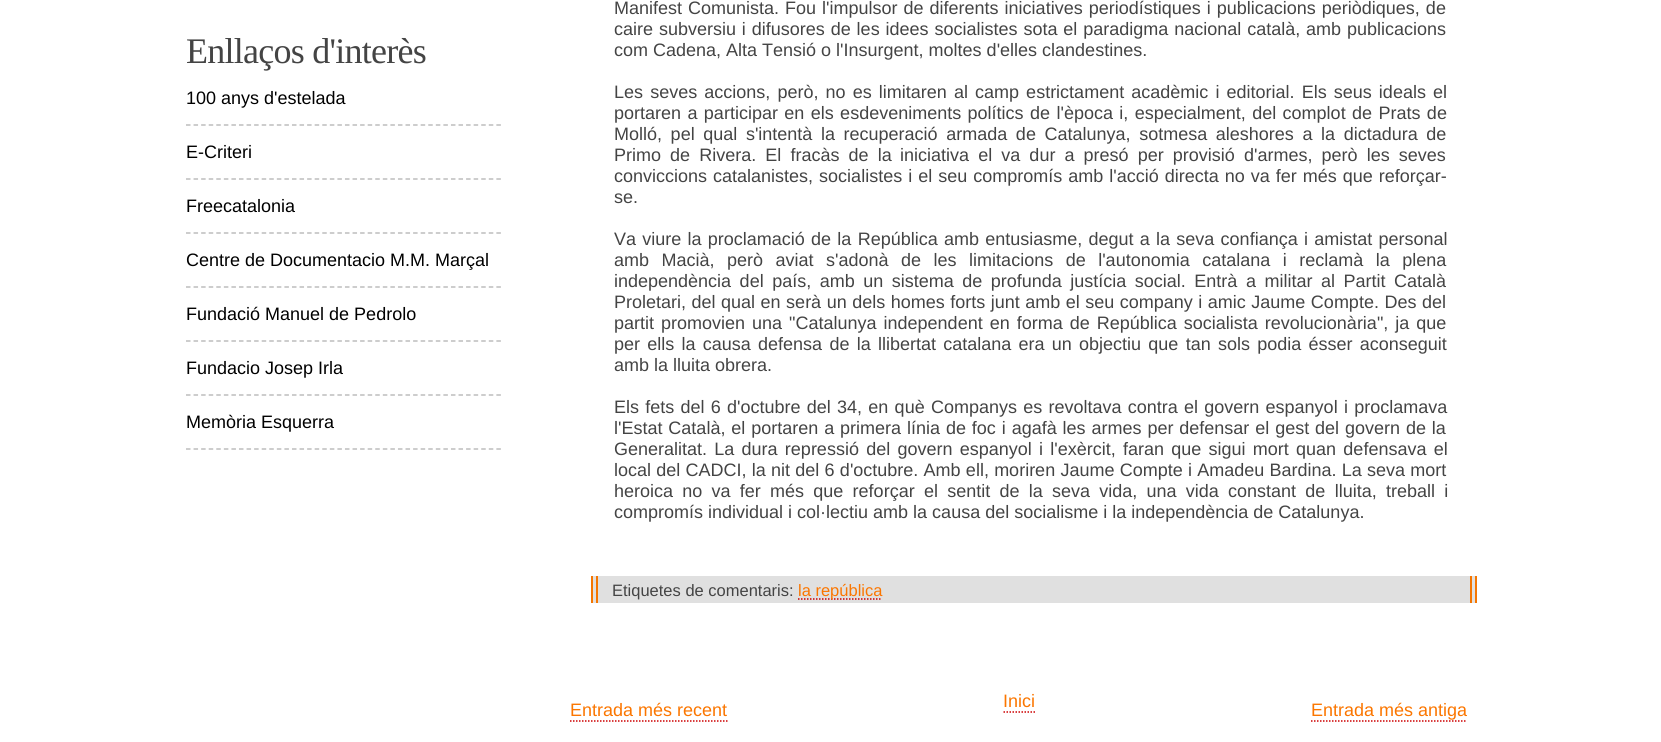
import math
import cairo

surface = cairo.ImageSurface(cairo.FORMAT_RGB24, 1661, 742)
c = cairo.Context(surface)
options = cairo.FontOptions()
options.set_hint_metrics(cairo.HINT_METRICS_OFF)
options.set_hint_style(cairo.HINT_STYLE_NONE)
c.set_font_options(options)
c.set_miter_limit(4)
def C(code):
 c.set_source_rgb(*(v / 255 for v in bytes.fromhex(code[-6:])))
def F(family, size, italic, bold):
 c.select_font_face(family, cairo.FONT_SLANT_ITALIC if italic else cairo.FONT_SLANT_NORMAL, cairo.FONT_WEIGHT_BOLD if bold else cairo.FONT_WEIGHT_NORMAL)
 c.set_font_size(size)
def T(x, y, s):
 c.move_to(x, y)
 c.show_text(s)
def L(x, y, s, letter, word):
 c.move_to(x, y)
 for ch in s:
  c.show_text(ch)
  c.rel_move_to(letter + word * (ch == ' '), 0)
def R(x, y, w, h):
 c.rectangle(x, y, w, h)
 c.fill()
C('ffffff')
c.paint()
F('Liberation Serif',36,0,0)
C('444444')
L(186,63,'Enllaços d\'interès',-.75,0)
c.new_path()
c.move_to(186,125)
c.line_to(501,125)
C('bcbcbc')
c.set_line_width(1.5)
c.set_dash([4.5,3.07])
c.stroke()
F('Liberation Sans',18,0,0)
C('000000')
T(186,104,'100 anys d\'estelada')
c.new_path()
c.move_to(186,179)
c.line_to(501,179)
C('bcbcbc')
c.stroke()
C('000000')
T(186,158,'E-Criteri')
c.new_path()
c.move_to(186,233)
c.line_to(501,233)
C('bcbcbc')
c.stroke()
C('000000')
T(186,212,'Freecatalonia')
c.new_path()
c.move_to(186,287)
c.line_to(501,287)
C('bcbcbc')
c.stroke()
C('000000')
T(186,266,'Centre de Documentacio M.M. Marçal')
c.new_path()
c.move_to(186,341)
c.line_to(501,341)
C('bcbcbc')
c.stroke()
C('000000')
T(186,320,'Fundació Manuel de Pedrolo')
c.new_path()
c.move_to(186,395)
c.line_to(501,395)
C('bcbcbc')
c.stroke()
C('000000')
T(186,374,'Fundacio Josep Irla')
c.new_path()
c.move_to(186,449)
c.line_to(501,449)
C('bcbcbc')
c.stroke()
C('000000')
T(186,428,'Memòria Esquerra')
C('444444')
L(614,14,'Manifest Comunista. Fou l\'impulsor de diferents iniciatives periodístiques i publicacions periòdiques, de',0,1)
L(614,35,'caire subversiu i difusores de les idees socialistes sota el paradigma nacional català, amb publicacions',0,.9)
T(614,56,'com Cadena, Alta Tensió o l\'Insurgent, moltes d\'elles clandestines.')
L(614,98,'Les seves accions, però, no es limitaren al camp estrictament acadèmic i editorial. Els seus ideals el',0,2.1)
L(614,119,'portaren a participar en els esdeveniments polítics de l\'època i, especialment, del complot de Prats de',0,1.4)
L(614,140,'Molló, pel qual s\'intentà la recuperació armada de Catalunya, sotmesa aleshores a la dictadura de',0,3.6)
L(614,161,'Primo de Rivera. El fracàs de la',0,4.1)
L(900,161,'iniciativa el va dur a presó per provisió d\'armes, però les seves',0,4.1)
L(614,182,'conviccions catalanistes, socialistes i el seu compromís amb l\'acció directa no va fer més que reforçar-',0,1)
T(614,203,'se.')
L(614,245,'Va viure la proclamació de la República amb entusiasme, degut a la seva confiança i amistat personal',0,1.25)
L(614,266,'amb Macià, però aviat s\'adonà de les limitacions de l\'autonomia catalana i reclamà la plena',0,7.5)
L(614,287,'independència del país, amb un sistema de profunda justícia social. Entrà a militar al Partit Català',0,3.5)
L(614,308,'Proletari, del qual en serà un dels homes forts junt amb el seu company i amic Jaume Compte. Des del',0,.5)
L(614,329,'partit promovien una "Catalunya independent en forma de República socialista revolucionària", ja que',0,2)
L(614,350,'per ells la causa defensa de la llibertat catalana era un objectiu que tan sols podia ésser aconseguit',0,2.25)
T(614,371,'amb la lluita obrera.')
L(614,413,'Els fets del 6 d\'octubre del 34, en què Companys es revoltava contra el govern espanyol i proclamava',0,1.25)
L(614,434,'l\'Estat Català, el portaren a primera línia de foc i agafà les armes per defensar el gest del govern de la',0,.9)
L(614,455,'Generalitat. La dura repressió del govern espanyol i l\'exèrcit, faran que sigui mort quan defensava el',0,2.25)
L(614,476,'local del CADCI, la nit del 6 d\'octubre. Amb ell, moriren Jaume Compte i Amadeu Bardina. La seva mort',0,.25)
L(614,497,'heroica no va fer més que reforçar el sentit de la seva vida, una vida constant de lluita, treball i',0,4.25)
T(614,518,'compromís individual i col·lectiu amb la causa del socialisme i la independència de Catalunya.')
C('e0e0e0')
R(593,576,882,27)
C('f57601')
R(1470,576,2,27)
R(1475,576,2,27)
R(591,576,2,27)
R(596,576,2,27)
F('Liberation Sans',16.5,0,0)
C('444444')
T(612,596,'Etiquetes de comentaris:')
c.new_path()
c.move_to(798,599)
c.line_to(882,599)
C('cc0001')
c.set_dash([1.5,1.5])
c.stroke()
C('fb7600')
T(798,596,'la república')
F('Liberation Sans',18,0,0)
T(1003,707,'Inici')
c.new_path()
c.move_to(1003.5,712)
c.line_to(1035,712)
C('cc0001')
c.stroke()
C('fb7600')
T(570,716,'Entrada més recent')
c.new_path()
c.move_to(570,721)
c.line_to(727.5,721)
C('cc0001')
c.stroke()
C('fb7600')
T(1311,716,'Entrada més antiga')
c.new_path()
c.move_to(1311,721)
c.line_to(1467,721)
C('cc0001')
c.stroke()
surface.write_to_png('o.png')
